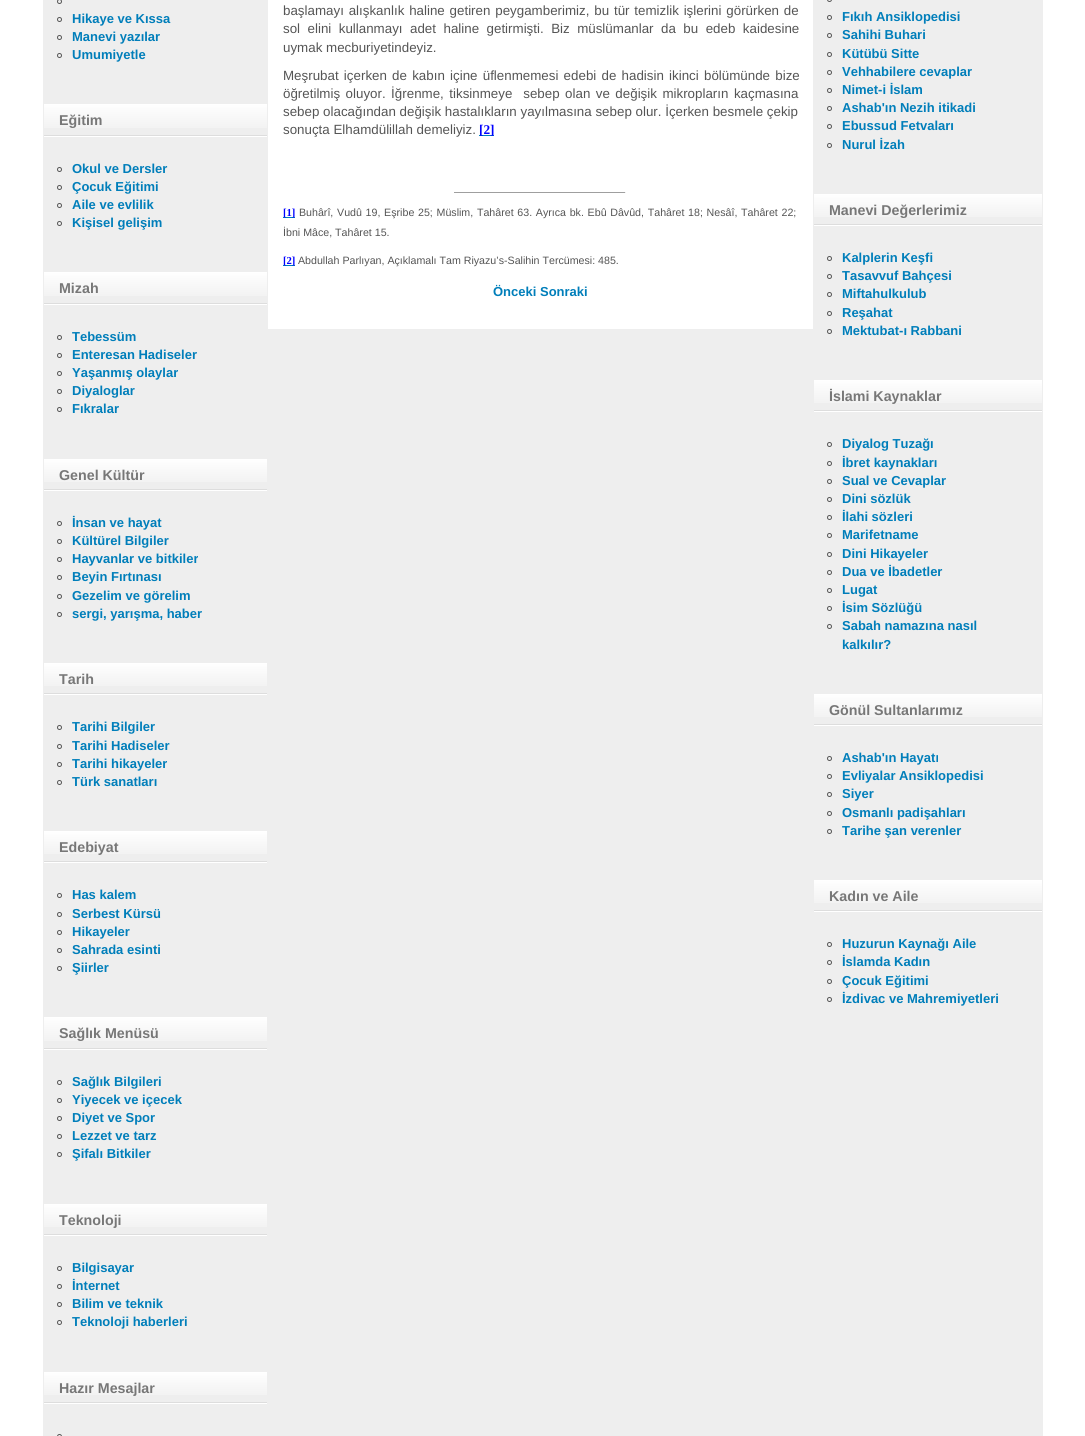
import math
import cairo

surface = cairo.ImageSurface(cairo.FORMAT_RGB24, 1085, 1436)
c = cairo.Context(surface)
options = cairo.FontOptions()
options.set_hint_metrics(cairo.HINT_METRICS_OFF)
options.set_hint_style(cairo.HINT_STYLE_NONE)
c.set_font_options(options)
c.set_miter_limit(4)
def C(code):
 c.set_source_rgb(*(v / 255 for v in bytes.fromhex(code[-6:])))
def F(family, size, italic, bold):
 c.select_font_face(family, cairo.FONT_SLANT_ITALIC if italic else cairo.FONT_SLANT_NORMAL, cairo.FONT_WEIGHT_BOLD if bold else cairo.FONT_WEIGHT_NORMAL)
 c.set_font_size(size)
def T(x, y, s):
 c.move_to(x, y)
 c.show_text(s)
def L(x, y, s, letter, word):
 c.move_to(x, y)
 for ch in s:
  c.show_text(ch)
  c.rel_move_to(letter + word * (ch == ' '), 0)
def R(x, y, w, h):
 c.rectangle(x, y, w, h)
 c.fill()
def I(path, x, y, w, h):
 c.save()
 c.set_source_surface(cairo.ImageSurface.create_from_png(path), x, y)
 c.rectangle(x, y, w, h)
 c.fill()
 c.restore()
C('ffffff')
c.paint()
C('eeeeee')
R(43,0,1000,1436)
c.arc(59.5,1.5,2,0,2 * math.pi)
C('555555')
c.set_line_width(1)
c.stroke()
c.arc(59.5,19.5,2,0,2 * math.pi)
c.stroke()
F('Liberation Sans',13,0,1)
C('007eba')
T(72,23,'Hikaye ve Kıssa')
c.new_path()
c.arc(59.5,37.5,2,0,2 * math.pi)
C('555555')
c.stroke()
C('007eba')
T(72,41,'Manevi yazılar')
c.new_path()
c.arc(59.5,55.5,2,0,2 * math.pi)
C('555555')
c.stroke()
C('007eba')
T(72,59,'Umumiyetle')
I('1.png',44,104,223,24)
C('dddddd')
R(44,135,223,1)
F('Liberation Sans',14.25,0,1)
C('777777')
T(59,125,'Eğitim')
C('ffffff')
R(44,136,223,1)
c.new_path()
c.arc(59.5,169.5,2,0,2 * math.pi)
C('555555')
c.stroke()
F('Liberation Sans',13,0,1)
C('007eba')
T(72,173,'Okul ve Dersler')
c.new_path()
c.arc(59.5,187.5,2,0,2 * math.pi)
C('555555')
c.stroke()
C('007eba')
T(72,191,'Çocuk Eğitimi')
c.new_path()
c.arc(59.5,205.5,2,0,2 * math.pi)
C('555555')
c.stroke()
C('007eba')
T(72,209,'Aile ve evlilik')
c.new_path()
c.arc(59.5,223.5,2,0,2 * math.pi)
C('555555')
c.stroke()
C('007eba')
T(72,227,'Kişisel gelişim')
I('1.png',44,272,223,24)
C('dddddd')
R(44,303,223,1)
F('Liberation Sans',14.25,0,1)
C('777777')
T(59,293,'Mizah')
C('ffffff')
R(44,304,223,1)
c.new_path()
c.arc(59.5,337.5,2,0,2 * math.pi)
C('555555')
c.stroke()
F('Liberation Sans',13,0,1)
C('007eba')
T(72,341,'Tebessüm')
c.new_path()
c.arc(59.5,355.5,2,0,2 * math.pi)
C('555555')
c.stroke()
C('007eba')
T(72,359,'Enteresan Hadiseler')
c.new_path()
c.arc(59.5,373.5,2,0,2 * math.pi)
C('555555')
c.stroke()
C('007eba')
T(72,377,'Yaşanmış olaylar')
c.new_path()
c.arc(59.5,391.5,2,0,2 * math.pi)
C('555555')
c.stroke()
C('007eba')
T(72,395,'Diyaloglar')
c.new_path()
c.arc(59.5,409.5,2,0,2 * math.pi)
C('555555')
c.stroke()
C('007eba')
T(72,413,'Fıkralar')
I('2.png',44,459,223,23)
C('dddddd')
R(44,489,223,1)
F('Liberation Sans',14.25,0,1)
C('777777')
T(59,480,'Genel Kültür')
C('ffffff')
R(44,490,223,1)
c.new_path()
c.arc(59.5,523.5,2,0,2 * math.pi)
C('555555')
c.stroke()
F('Liberation Sans',13,0,1)
C('007eba')
T(72,527,'İnsan ve hayat')
c.new_path()
c.arc(59.5,541.5,2,0,2 * math.pi)
C('555555')
c.stroke()
C('007eba')
T(72,545,'Kültürel Bilgiler')
c.new_path()
c.arc(59.5,559.5,2,0,2 * math.pi)
C('555555')
c.stroke()
C('007eba')
T(72,563,'Hayvanlar ve bitkiler')
c.new_path()
c.arc(59.5,577.5,2,0,2 * math.pi)
C('555555')
c.stroke()
C('007eba')
T(72,581,'Beyin Fırtınası')
c.new_path()
c.arc(59.5,596.5,2,0,2 * math.pi)
C('555555')
c.stroke()
C('007eba')
T(72,600,'Gezelim ve görelim')
c.new_path()
c.arc(59.5,614.5,2,0,2 * math.pi)
C('555555')
c.stroke()
C('007eba')
T(72,618,'sergi, yarışma, haber')
I('2.png',44,663,223,23)
C('dddddd')
R(44,693,223,1)
F('Liberation Sans',14.25,0,1)
C('777777')
T(59,684,'Tarih')
C('ffffff')
R(44,694,223,1)
c.new_path()
c.arc(59.5,727.5,2,0,2 * math.pi)
C('555555')
c.stroke()
F('Liberation Sans',13,0,1)
C('007eba')
T(72,731,'Tarihi Bilgiler')
c.new_path()
c.arc(59.5,746.5,2,0,2 * math.pi)
C('555555')
c.stroke()
C('007eba')
T(72,750,'Tarihi Hadiseler')
c.new_path()
c.arc(59.5,764.5,2,0,2 * math.pi)
C('555555')
c.stroke()
C('007eba')
T(72,768,'Tarihi hikayeler')
c.new_path()
c.arc(59.5,782.5,2,0,2 * math.pi)
C('555555')
c.stroke()
C('007eba')
T(72,786,'Türk sanatları')
I('2.png',44,831,223,23)
C('dddddd')
R(44,861,223,1)
F('Liberation Sans',14.25,0,1)
C('777777')
T(59,852,'Edebiyat')
C('ffffff')
R(44,862,223,1)
c.new_path()
c.arc(59.5,895.5,2,0,2 * math.pi)
C('555555')
c.stroke()
F('Liberation Sans',13,0,1)
C('007eba')
T(72,899,'Has kalem')
c.new_path()
c.arc(59.5,914.5,2,0,2 * math.pi)
C('555555')
c.stroke()
C('007eba')
T(72,918,'Serbest Kürsü')
c.new_path()
c.arc(59.5,932.5,2,0,2 * math.pi)
C('555555')
c.stroke()
C('007eba')
T(72,936,'Hikayeler')
c.new_path()
c.arc(59.5,950.5,2,0,2 * math.pi)
C('555555')
c.stroke()
C('007eba')
T(72,954,'Sahrada esinti')
c.new_path()
c.arc(59.5,968.5,2,0,2 * math.pi)
C('555555')
c.stroke()
C('007eba')
T(72,972,'Şiirler')
I('1.png',44,1017,223,24)
C('dddddd')
R(44,1048,223,1)
F('Liberation Sans',14.25,0,1)
C('777777')
T(59,1038,'Sağlık Menüsü')
C('ffffff')
R(44,1049,223,1)
c.new_path()
c.arc(59.5,1082.5,2,0,2 * math.pi)
C('555555')
c.stroke()
F('Liberation Sans',13,0,1)
C('007eba')
T(72,1086,'Sağlık Bilgileri')
c.new_path()
c.arc(59.5,1100.5,2,0,2 * math.pi)
C('555555')
c.stroke()
C('007eba')
T(72,1104,'Yiyecek ve içecek')
c.new_path()
c.arc(59.5,1118.5,2,0,2 * math.pi)
C('555555')
c.stroke()
C('007eba')
T(72,1122,'Diyet ve Spor')
c.new_path()
c.arc(59.5,1136.5,2,0,2 * math.pi)
C('555555')
c.stroke()
C('007eba')
T(72,1140,'Lezzet ve tarz')
c.new_path()
c.arc(59.5,1154.5,2,0,2 * math.pi)
C('555555')
c.stroke()
C('007eba')
T(72,1158,'Şifalı Bitkiler')
I('2.png',44,1204,223,23)
C('dddddd')
R(44,1234,223,1)
F('Liberation Sans',14.25,0,1)
C('777777')
T(59,1225,'Teknoloji')
C('ffffff')
R(44,1235,223,1)
c.new_path()
c.arc(59.5,1268.5,2,0,2 * math.pi)
C('555555')
c.stroke()
F('Liberation Sans',13,0,1)
C('007eba')
T(72,1272,'Bilgisayar')
c.new_path()
c.arc(59.5,1286.5,2,0,2 * math.pi)
C('555555')
c.stroke()
C('007eba')
T(72,1290,'İnternet')
c.new_path()
c.arc(59.5,1304.5,2,0,2 * math.pi)
C('555555')
c.stroke()
C('007eba')
T(72,1308,'Bilim ve teknik')
c.new_path()
c.arc(59.5,1322.5,2,0,2 * math.pi)
C('555555')
c.stroke()
C('007eba')
T(72,1326,'Teknoloji haberleri')
I('2.png',44,1372,223,23)
C('dddddd')
R(44,1402,223,1)
F('Liberation Sans',14.25,0,1)
C('777777')
T(59,1393,'Hazır Mesajlar')
C('ffffff')
R(44,1403,223,1)
c.new_path()
c.arc(59.5,1436.5,2,0,2 * math.pi)
C('555555')
c.stroke()
C('ffffff')
R(268,0,545,329)
F('Liberation Sans',13.35,0,0)
C('555555')
L(283,15,'başlamayı alışkanlık haline getiren peygamberimiz, bu tür temizlik işlerini görürken de',0,1.1)
L(283,33,'sol elini kullanmayı adet haline getirmişti. Biz müslümanlar da bu edeb kaidesine',0,3.75)
T(283,52,'uymak mecburiyetindeyiz.')
L(283,80,'Meşrubat içerken de kabın içine üflenmemesi edebi de hadisin ikinci bölümünde bize',0,1.5)
L(283,98,'öğretilmiş oluyor. İğrenme, tiksinmeye  sebep olan ve değişik mikropların kaçmasına',0,1.75)
T(283,116,'sebep olacağından değişik hastalıkların yayılmasına sebep olur. İçerken besmele çekip')
T(283,134,'sonuçta Elhamdülillah demeliyiz.')
C('007eba')
R(479,135,15,1)
F('Liberation Serif',13.35,0,1)
C('0000ff')
T(479,134,'[2]')
C('9f9f9f')
R(454,192,172,1)
C('eeeeee')
R(625,192,1,1)
C('007eba')
R(283,217,12,1)
F('Liberation Serif',10.65,0,1)
C('0000ff')
T(283,216,'[1]')
F('Liberation Sans',10.65,0,0)
C('555555')
L(299,216,'Buhârî, Vudû 19, Eşribe 25; Müslim, Tahâret 63. Ayrıca bk. Ebû Dâvûd, Tahâret 18; Nesâî, Tahâret 22;',0,.75)
T(283,236,'İbni Mâce, Tahâret 15.')
C('007eba')
R(283,265,12,1)
F('Liberation Serif',10.65,0,1)
C('0000ff')
T(283,264,'[2]')
F('Liberation Sans',10.65,0,0)
C('555555')
T(298,264,'Abdullah Parlıyan, Açıklamalı Tam Riyazu’s-Salihin Tercümesi: 485.')
F('Liberation Sans',13,0,1)
C('007eba')
T(493,296,'Önceki Sonraki')
c.new_path()
c.arc(829.5,-.5,2,0,2 * math.pi)
C('555555')
c.stroke()
c.arc(829.5,17.5,2,0,2 * math.pi)
c.stroke()
C('007eba')
T(842,21,'Fıkıh Ansiklopedisi')
c.new_path()
c.arc(829.5,35.5,2,0,2 * math.pi)
C('555555')
c.stroke()
C('007eba')
T(842,39,'Sahihi Buhari')
c.new_path()
c.arc(829.5,54.5,2,0,2 * math.pi)
C('555555')
c.stroke()
C('007eba')
T(842,58,'Kütübü Sitte')
c.new_path()
c.arc(829.5,72.5,2,0,2 * math.pi)
C('555555')
c.stroke()
C('007eba')
T(842,76,'Vehhabilere cevaplar')
c.new_path()
c.arc(829.5,90.5,2,0,2 * math.pi)
C('555555')
c.stroke()
C('007eba')
T(842,94,'Nimet-i İslam')
c.new_path()
c.arc(829.5,108.5,2,0,2 * math.pi)
C('555555')
c.stroke()
C('007eba')
T(842,112,'Ashab\'ın Nezih itikadi')
c.new_path()
c.arc(829.5,126.5,2,0,2 * math.pi)
C('555555')
c.stroke()
C('007eba')
T(842,130,'Ebussud Fetvaları')
c.new_path()
c.arc(829.5,145.5,2,0,2 * math.pi)
C('555555')
c.stroke()
C('007eba')
T(842,149,'Nurul İzah')
I('3.png',814,194,228,23)
C('dddddd')
R(814,224,228,1)
F('Liberation Sans',14.25,0,1)
C('777777')
T(829,215,'Manevi Değerlerimiz')
C('ffffff')
R(814,225,228,1)
c.new_path()
c.arc(829.5,258.5,2,0,2 * math.pi)
C('555555')
c.stroke()
F('Liberation Sans',13,0,1)
C('007eba')
T(842,262,'Kalplerin Keşfi')
c.new_path()
c.arc(829.5,276.5,2,0,2 * math.pi)
C('555555')
c.stroke()
C('007eba')
T(842,280,'Tasavvuf Bahçesi')
c.new_path()
c.arc(829.5,294.5,2,0,2 * math.pi)
C('555555')
c.stroke()
C('007eba')
T(842,298,'Miftahulkulub')
c.new_path()
c.arc(829.5,313.5,2,0,2 * math.pi)
C('555555')
c.stroke()
C('007eba')
T(842,317,'Reşahat')
c.new_path()
c.arc(829.5,331.5,2,0,2 * math.pi)
C('555555')
c.stroke()
C('007eba')
T(842,335,'Mektubat-ı Rabbani')
I('3.png',814,380,228,23)
C('dddddd')
R(814,410,228,1)
F('Liberation Sans',14.25,0,1)
C('777777')
T(829,401,'İslami Kaynaklar')
C('ffffff')
R(814,411,228,1)
c.new_path()
c.arc(829.5,444.5,2,0,2 * math.pi)
C('555555')
c.stroke()
F('Liberation Sans',13,0,1)
C('007eba')
T(842,448,'Diyalog Tuzağı')
c.new_path()
c.arc(829.5,463.5,2,0,2 * math.pi)
C('555555')
c.stroke()
C('007eba')
T(842,467,'İbret kaynakları')
c.new_path()
c.arc(829.5,481.5,2,0,2 * math.pi)
C('555555')
c.stroke()
C('007eba')
T(842,485,'Sual ve Cevaplar')
c.new_path()
c.arc(829.5,499.5,2,0,2 * math.pi)
C('555555')
c.stroke()
C('007eba')
T(842,503,'Dini sözlük')
c.new_path()
c.arc(829.5,517.5,2,0,2 * math.pi)
C('555555')
c.stroke()
C('007eba')
T(842,521,'İlahi sözleri')
c.new_path()
c.arc(829.5,535.5,2,0,2 * math.pi)
C('555555')
c.stroke()
C('007eba')
T(842,539,'Marifetname')
c.new_path()
c.arc(829.5,554.5,2,0,2 * math.pi)
C('555555')
c.stroke()
C('007eba')
T(842,558,'Dini Hikayeler')
c.new_path()
c.arc(829.5,572.5,2,0,2 * math.pi)
C('555555')
c.stroke()
C('007eba')
T(842,576,'Dua ve İbadetler')
c.new_path()
c.arc(829.5,590.5,2,0,2 * math.pi)
C('555555')
c.stroke()
C('007eba')
T(842,594,'Lugat')
c.new_path()
c.arc(829.5,608.5,2,0,2 * math.pi)
C('555555')
c.stroke()
C('007eba')
T(842,612,'İsim Sözlüğü')
c.new_path()
c.arc(829.5,626.5,2,0,2 * math.pi)
C('555555')
c.stroke()
C('007eba')
T(842,630,'Sabah namazına nasıl')
T(842,649,'kalkılır?')
I('3.png',814,694,228,23)
C('dddddd')
R(814,724,228,1)
F('Liberation Sans',14.25,0,1)
C('777777')
T(829,715,'Gönül Sultanlarımız')
C('ffffff')
R(814,725,228,1)
c.new_path()
c.arc(829.5,758.5,2,0,2 * math.pi)
C('555555')
c.stroke()
F('Liberation Sans',13,0,1)
C('007eba')
T(842,762,'Ashab\'ın Hayatı')
c.new_path()
c.arc(829.5,776.5,2,0,2 * math.pi)
C('555555')
c.stroke()
C('007eba')
T(842,780,'Evliyalar Ansiklopedisi')
c.new_path()
c.arc(829.5,794.5,2,0,2 * math.pi)
C('555555')
c.stroke()
C('007eba')
T(842,798,'Siyer')
c.new_path()
c.arc(829.5,813.5,2,0,2 * math.pi)
C('555555')
c.stroke()
C('007eba')
T(842,817,'Osmanlı padişahları')
c.new_path()
c.arc(829.5,831.5,2,0,2 * math.pi)
C('555555')
c.stroke()
C('007eba')
T(842,835,'Tarihe şan verenler')
I('3.png',814,880,228,23)
C('dddddd')
R(814,910,228,1)
F('Liberation Sans',14.25,0,1)
C('777777')
T(829,901,'Kadın ve Aile')
C('ffffff')
R(814,911,228,1)
c.new_path()
c.arc(829.5,944.5,2,0,2 * math.pi)
C('555555')
c.stroke()
F('Liberation Sans',13,0,1)
C('007eba')
T(842,948,'Huzurun Kaynağı Aile')
c.new_path()
c.arc(829.5,962.5,2,0,2 * math.pi)
C('555555')
c.stroke()
C('007eba')
T(842,966,'İslamda Kadın')
c.new_path()
c.arc(829.5,981.5,2,0,2 * math.pi)
C('555555')
c.stroke()
C('007eba')
T(842,985,'Çocuk Eğitimi')
c.new_path()
c.arc(829.5,999.5,2,0,2 * math.pi)
C('555555')
c.stroke()
C('007eba')
T(842,1003,'İzdivac ve Mahremiyetleri')
surface.write_to_png('o.png')
